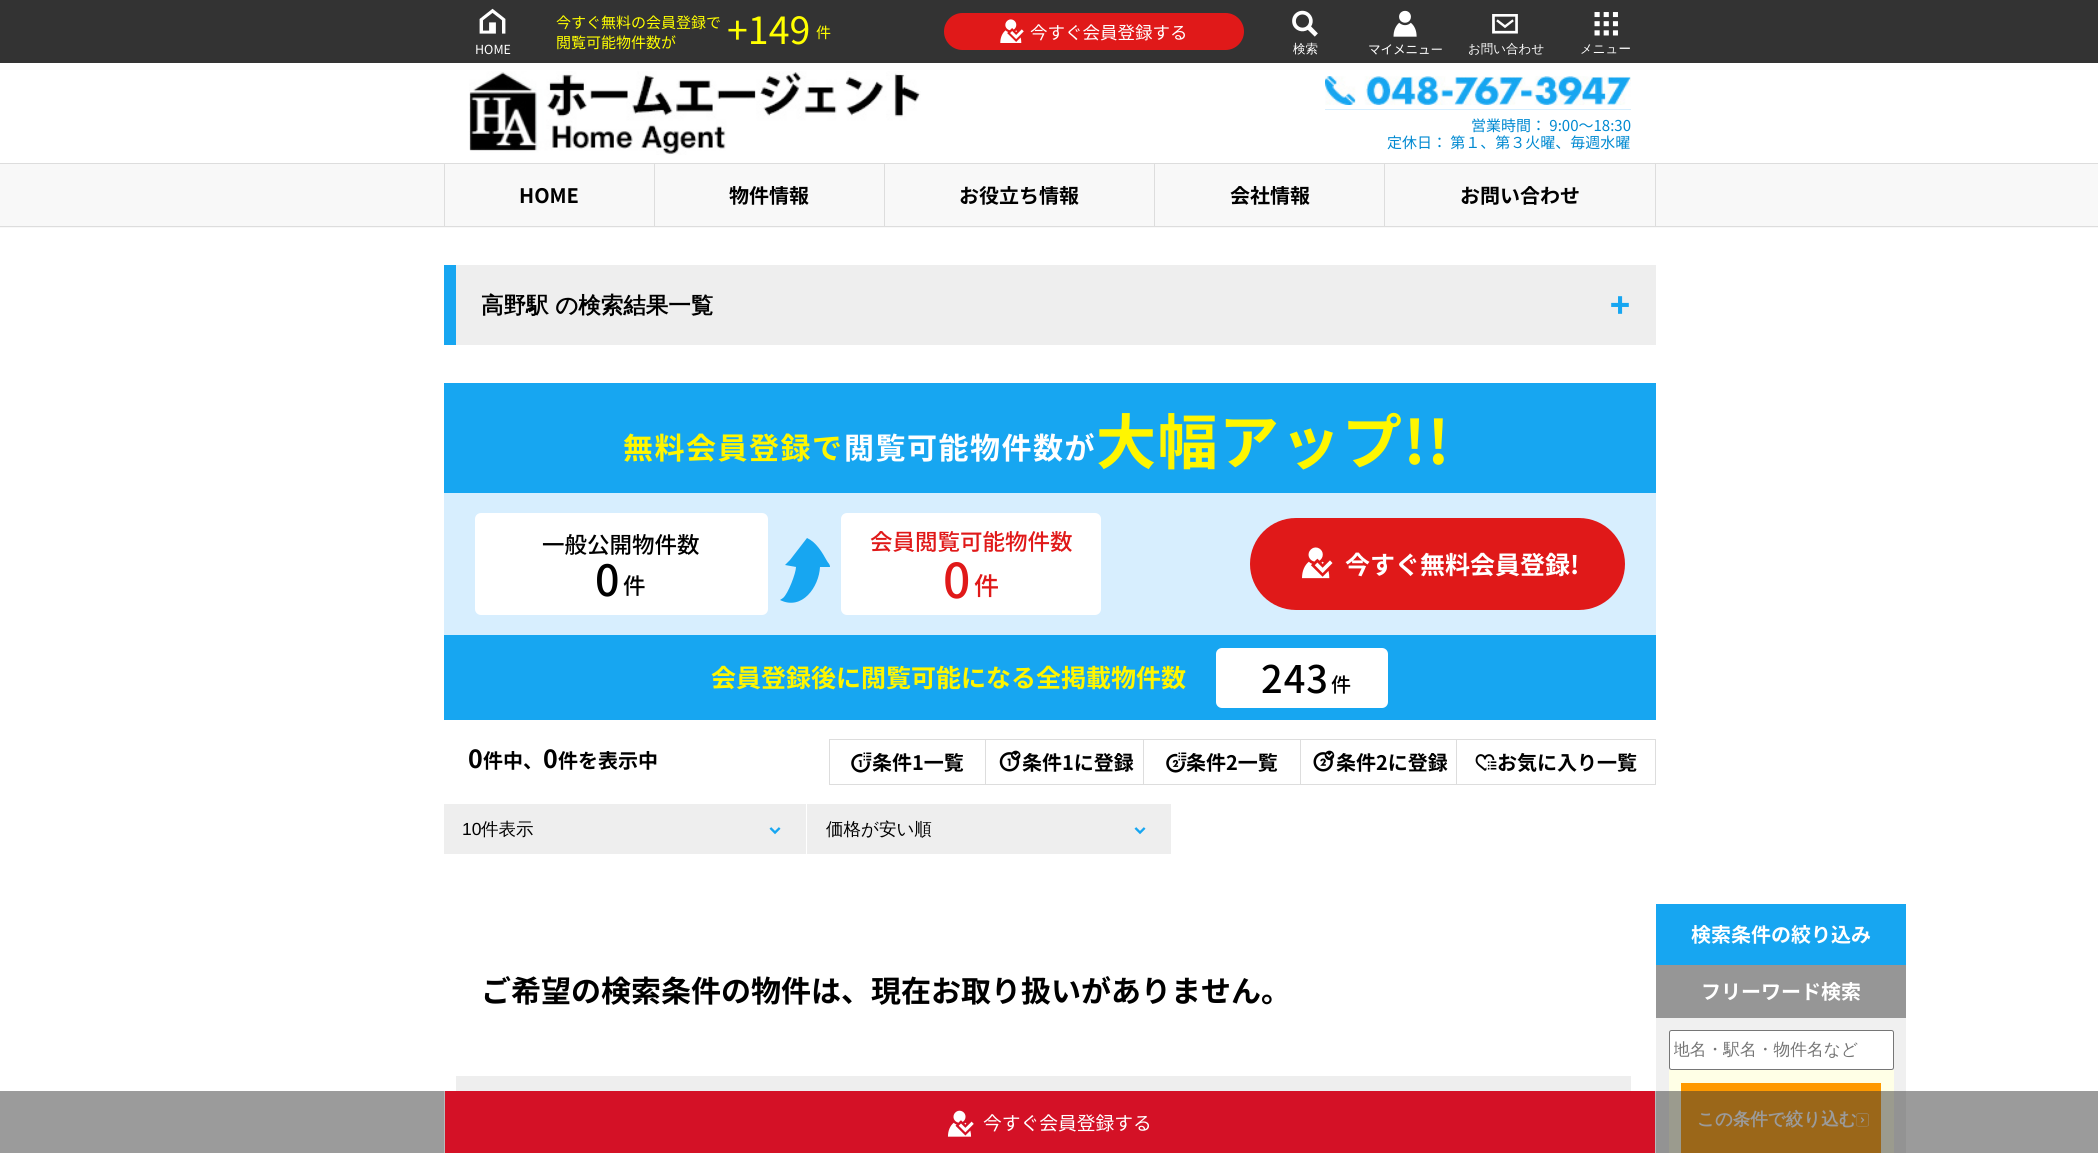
import math
import cairo

surface = cairo.ImageSurface(cairo.FORMAT_RGB24, 2098, 1153)
c = cairo.Context(surface)
options = cairo.FontOptions()
options.set_hint_metrics(cairo.HINT_METRICS_OFF)
options.set_hint_style(cairo.HINT_STYLE_NONE)
c.set_font_options(options)
c.set_miter_limit(4)
def C(code):
 c.set_source_rgb(*(v / 255 for v in bytes.fromhex(code[-6:])))
def F(family, size, italic, bold):
 c.select_font_face(family, cairo.FONT_SLANT_ITALIC if italic else cairo.FONT_SLANT_NORMAL, cairo.FONT_WEIGHT_BOLD if bold else cairo.FONT_WEIGHT_NORMAL)
 c.set_font_size(size)
def T(x, y, s):
 c.move_to(x, y)
 c.show_text(s)
def L(x, y, s, letter, word):
 c.move_to(x, y)
 for ch in s:
  c.show_text(ch)
  c.rel_move_to(letter + word * (ch == ' '), 0)
def R(x, y, w, h):
 c.rectangle(x, y, w, h)
 c.fill()
def Q(x, y, w, h, r):
 c.new_sub_path()
 for i, (u, v) in enumerate([(x + w - r, y + h - r), (x + r, y + h - r), (x + r, y + r), (x + w - r, y + r)]):
  c.arc(u, v, r, i * math.pi / 2, (i + 1) * math.pi / 2)
 c.close_path()
def I(path, x, y, w, h):
 c.save()
 c.set_source_surface(cairo.ImageSurface.create_from_png(path), x, y)
 c.rectangle(x, y, w, h)
 c.fill()
 c.restore()
C('ffffff')
c.paint()
C('9b9b9b')
R(0,1091,2098,62)
C('333333')
R(0,0,2098,63)
F('Noto Sans CJK JP',15,0,0)
C('ffff00')
T(556,28,'今すぐ無料の会員登録で')
T(556,48,'閲覧可能物件数が')
F('Noto Sans CJK JP',37.5,0,0)
T(727,44,'+149')
F('Noto Sans CJK JP',15,0,0)
T(816,38,'件')
C('e01919')
Q(944,13,300,37,18.5)
c.fill()
I('1.png',1000,19,24,24)
F('Noto Sans CJK JP',17.5,0,0)
C('ffffff')
T(1030,39,'今すぐ会員登録する')
I('2.png',479,8,27,26)
F('Noto Sans CJK JP',12.5,0,0)
T(475,54,'HOME')
I('3.png',1292,10,26,27)
F('WenQuanYi Zen Hei Medium',12.5,0,0)
T(1293,53,'検索')
I('4.png',1393,10,24,27)
F('Noto Sans CJK JP',12.5,0,0)
T(1368,54,'マイメニュー')
I('5.png',1492,14,26,20)
F('WenQuanYi Zen Hei Medium',12.5,0,0)
T(1468,53,'お問い合わせ')
I('6.png',1594,12,24,24)
T(1580,53,'メニュー')
I('7.png',469,71,452,84)
I('8.png',1325,76,306,29)
C('d7eefe')
R(1325,109,306,1)
F('Noto Sans CJK JP',15,0,0)
C('0089d1')
T(1471,131,'営業時間： 9:00～18:30')
T(1387,148,'定休日： 第１、第３火曜、毎週水曜')
C('f8f8f8')
R(0,164,2098,64)
C('dddddd')
R(0,163,2098,1)
R(0,226,2098,1)
R(654,164,1,62)
R(444,164,1,62)
F('Noto Sans CJK JP',20,0,1)
C('000000')
T(519,203,'HOME')
C('dddddd')
R(884,164,1,62)
C('000000')
T(729,203,'物件情報')
C('dddddd')
R(1154,164,1,62)
C('000000')
T(959,203,'お役立ち情報')
C('dddddd')
R(1384,164,1,62)
C('000000')
T(1230,203,'会社情報')
C('dddddd')
R(1655,164,1,62)
C('000000')
T(1460,203,'お問い合わせ')
C('eeeeee')
R(456,265,1200,80)
C('17a6f1')
R(444,265,12,80)
F('WenQuanYi Zen Hei',22.5,0,1)
C('000000')
T(481,313,'高野駅 の検索結果一覧')
I('9.png',1611,296,18,18)
C('17a6f1')
R(444,383,1212,337)
F('Noto Sans CJK JP',30,0,1)
C('fff600')
L(623,459,'無料会員登録で',1.5,0)
C('ffffff')
L(844,459,'閲覧可能物件数が',1.5,0)
F('Noto Sans CJK JP',60,0,1)
C('fff600')
L(1096,464,'大幅アップ!!',1.5,0)
C('d7eefe')
R(444,493,1212,142)
C('ffffff')
Q(475,513,293,102,6)
c.fill()
F('Noto Sans CJK JP Medium',22.5,0,0)
C('000000')
T(542,553,'一般公開物件数')
F('Noto Sans CJK JP Medium',43,0,0)
L(595,596,'0',1,0)
F('Noto Sans CJK JP Medium',22.5,0,0)
L(623,594,'件',1,0)
C('17a6f1')
c.new_path()
c.move_to(807,538)
c.curve_to(816,542,822,552,827,561)
c.curve_to(828,563,830,564,830,567)
c.line_to(820,567)
c.curve_to(819,587,802,611,780,600)
c.line_to(783,598)
c.curve_to(788,594,796,573,796,567)
c.line_to(785,565)
c.line_to(790,560)
c.close_path()
c.fill()
C('ffffff')
Q(841,513,260,102,6)
c.fill()
C('e01919')
T(870,550,'会員閲覧可能物件数')
F('Noto Sans CJK JP Medium',48,0,0)
L(943,598,'0',1,0)
F('Noto Sans CJK JP Medium',25,0,0)
L(974,595,'件',1,0)
Q(1250,518,375,92,46)
c.fill()
I('10.png',1302,547,31,32)
F('Noto Sans CJK JP',25,0,1)
C('ffffff')
T(1345,574,'今すぐ無料会員登録!')
C('fff600')
T(711,687,'会員登録後に閲覧可能になる全掲載物件数')
C('ffffff')
Q(1216,648,172,60,6)
c.fill()
F('Noto Sans CJK JP Medium',38,0,0)
C('000000')
L(1261,693,'243',1,0)
F('Noto Sans CJK JP Medium',20,0,0)
L(1331,692,'件',1,0)
F('Noto Sans CJK JP',25,0,1)
T(468,768,'0')
F('Noto Sans CJK JP',20,0,1)
T(483,768,'件中、')
F('Noto Sans CJK JP',25,0,1)
T(543,768,'0')
F('Noto Sans CJK JP',20,0,1)
T(558,768,'件を表示中')
c.rectangle(829.5,739.5,826,45)
C('dddddd')
c.set_line_width(1)
c.stroke()
R(985,740,1,44)
I('11.png',851,752,21,21)
C('000000')
T(872,770,'条件1一覧')
C('dddddd')
R(1143,740,1,44)
I('12.png',999,750,22,22)
C('000000')
T(1022,770,'条件1に登録')
C('dddddd')
R(1300,740,1,44)
C('000000')
T(1186,770,'条件2一覧')
I('13.png',1166,752,21,21)
C('dddddd')
R(1456,740,1,44)
I('14.png',1313,750,22,22)
C('000000')
T(1336,770,'条件2に登録')
I('15.png',1475,754,22,17)
T(1497,770,'お気に入り一覧')
C('eeeeee')
R(444,804,727,50)
F('Liberation Sans',17.5,0,0)
C('000000')
T(462,835,'10')
F('WenQuanYi Zen Hei Medium',17.5,0,0)
T(481,835,'件表示')
I('16.png',769,827,12,8)
C('ffffff')
R(806,804,1,50)
C('000000')
T(826,835,'価格が安い順')
I('16.png',1134,827,12,8)
F('Noto Sans CJK JP',30,0,1)
T(481,1002,'ご希望の検索条件の物件は、現在お取り扱いがありません。')
C('eeeeee')
R(456,1076,1175,15)
C('17a6f1')
R(1656,904,250,61)
F('Noto Sans CJK JP',20,0,1)
C('ffffff')
T(1691,942,'検索条件の絞り込み')
C('f0f0f0')
R(1656,1018,250,73)
C('939393')
R(1656,1091,250,62)
C('969696')
R(1656,965,250,53)
C('ffffff')
T(1701,999,'フリーワード検索')
Q(1669.5,1030.5,224,39,2)
c.fill_preserve()
C('767676')
c.stroke()
c.save()
c.rectangle(1674,1039,215,22)
c.clip()
F('WenQuanYi Zen Hei Medium',16.75,0,0)
C('757575')
T(1673,1055,'地名・駅名・物件名など')
c.restore()
C('ffffe6')
R(1669,1070,225,21)
C('9b9b8e')
R(1669,1091,225,62)
C('ff9900')
R(1681,1083,200,8)
C('9b6719')
R(1681,1091,200,62)
F('WenQuanYi Zen Hei',17.5,0,1)
C('9b9b9b')
T(1697,1125,'この条件で絞り込む')
I('17.png',1856,1113,13,14)
C('b9b9b9')
R(1655,1091,1,62)
R(444,1091,1,62)
C('d41126')
R(445,1091,1210,62)
I('18.png',947,1110,27,27)
F('Noto Sans CJK JP',18.75,0,0)
C('ffffff')
T(983,1130,'今すぐ会員登録する')
surface.write_to_png('o.png')
